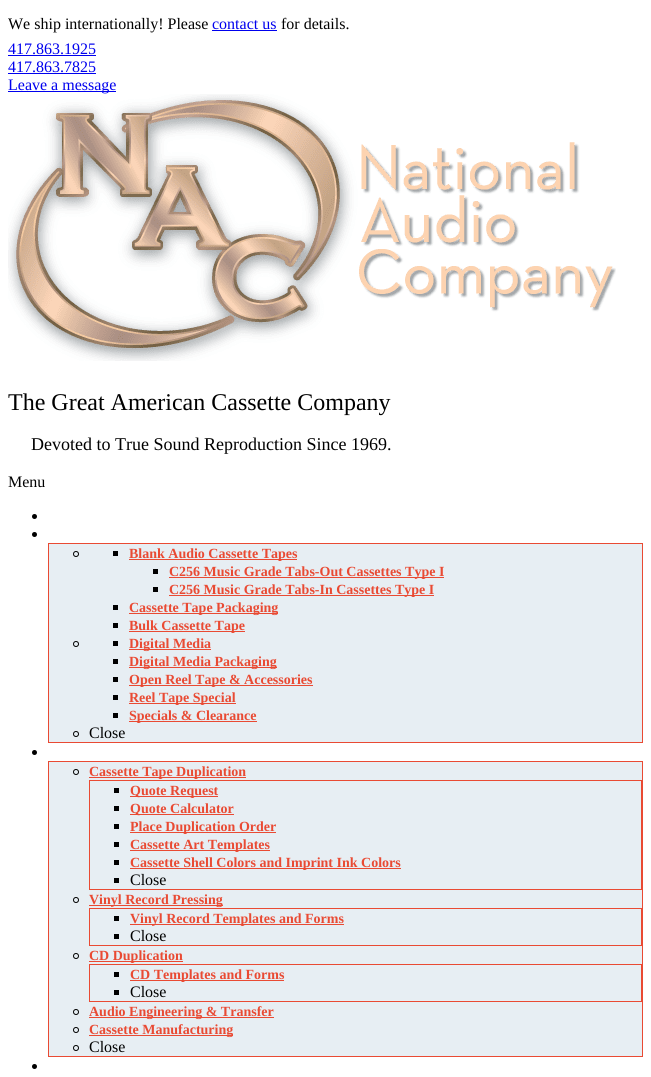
import math
import cairo

surface = cairo.ImageSurface(cairo.FORMAT_RGB24, 651, 1077)
c = cairo.Context(surface)
options = cairo.FontOptions()
options.set_hint_metrics(cairo.HINT_METRICS_OFF)
options.set_hint_style(cairo.HINT_STYLE_NONE)
c.set_font_options(options)
c.set_miter_limit(4)
def C(code):
 c.set_source_rgb(*(v / 255 for v in bytes.fromhex(code[-6:])))
def F(family, size, italic, bold):
 c.select_font_face(family, cairo.FONT_SLANT_ITALIC if italic else cairo.FONT_SLANT_NORMAL, cairo.FONT_WEIGHT_BOLD if bold else cairo.FONT_WEIGHT_NORMAL)
 c.set_font_size(size)
def T(x, y, s):
 c.move_to(x, y)
 c.show_text(s)
def R(x, y, w, h):
 c.rectangle(x, y, w, h)
 c.fill()
def I(path, x, y, w, h):
 c.save()
 c.set_source_surface(cairo.ImageSurface.create_from_png(path), x, y)
 c.rectangle(x, y, w, h)
 c.fill()
 c.restore()
C('ffffff')
c.paint()
F('Liberation Serif',16,0,0)
C('000000')
T(8,29,'We ship internationally! Please')
C('0000ee')
T(212,29,'contact us')
R(212,30,65,1)
C('000000')
T(281,29,'for details.')
C('0000ee')
T(8,54,'417.863.1925')
R(8,55,88,1)
T(8,72,'417.863.7825')
R(8,73,88,1)
R(8,91,108,1)
T(8,90,'Leave a message')
I('1.png',8,94,608,267)
F('Liberation Serif',24,0,0)
C('000000')
T(8,410,'The Great American Cassette Company')
F('Liberation Serif',18,0,0)
T(31,450,'Devoted to True Sound Reproduction Since 1969.')
F('Liberation Serif',16,0,0)
T(8,487,'Menu')
c.new_path()
c.arc(34.5,516.5,2.5,0,2 * math.pi)
c.fill()
c.arc(34.5,534.5,2.5,0,2 * math.pi)
c.fill()
C('e7eef3')
c.rectangle(48.5,543.5,594,199)
c.fill_preserve()
C('e94a33')
c.set_line_width(1)
c.stroke()
c.arc(76,554,2.5,0,2 * math.pi)
C('000000')
c.stroke()
R(113,551,5,5)
C('e94a33')
R(129,559,168,1)
F('Liberation Serif',14,0,1)
T(129,558,'Blank Audio Cassette Tapes')
C('000000')
R(153,569,5,5)
C('e94a33')
R(169,577,275,1)
T(169,576,'C256 Music Grade Tabs-Out Cassettes Type I')
C('000000')
R(153,587,5,5)
C('e94a33')
R(169,595,265,1)
T(169,594,'C256 Music Grade Tabs-In Cassettes Type I')
C('000000')
R(113,605,5,5)
C('e94a33')
R(129,613,149,1)
T(129,612,'Cassette Tape Packaging')
C('000000')
R(113,623,5,5)
C('e94a33')
R(129,631,116,1)
T(129,630,'Bulk Cassette Tape')
c.new_path()
c.arc(76,644,2.5,0,2 * math.pi)
C('000000')
c.stroke()
R(113,641,5,5)
C('e94a33')
R(129,649,82,1)
T(129,648,'Digital Media')
C('000000')
R(113,659,5,5)
C('e94a33')
R(129,667,148,1)
T(129,666,'Digital Media Packaging')
C('000000')
R(113,677,5,5)
C('e94a33')
R(129,685,184,1)
T(129,684,'Open Reel Tape & Accessories')
C('000000')
R(113,695,5,5)
C('e94a33')
R(129,703,107,1)
T(129,702,'Reel Tape Special')
C('000000')
R(113,713,5,5)
C('e94a33')
R(129,721,128,1)
T(129,720,'Specials & Clearance')
c.new_path()
c.arc(76,734,2.5,0,2 * math.pi)
C('000000')
c.stroke()
F('Liberation Serif',16,0,0)
T(89,738,'Close')
c.new_path()
c.arc(34.5,752.5,2.5,0,2 * math.pi)
c.fill()
C('e7eef3')
c.rectangle(48.5,761.5,594,295)
c.fill_preserve()
C('e94a33')
c.stroke()
c.arc(76,772,2.5,0,2 * math.pi)
C('000000')
c.stroke()
C('e94a33')
R(89,777,157,1)
F('Liberation Serif',14,0,1)
T(89,776,'Cassette Tape Duplication')
c.rectangle(89.5,780.5,552,109)
c.stroke()
C('000000')
R(114,788,5,5)
C('e94a33')
R(130,796,88,1)
T(130,795,'Quote Request')
C('000000')
R(114,806,5,5)
C('e94a33')
R(130,814,104,1)
T(130,813,'Quote Calculator')
C('000000')
R(114,824,5,5)
C('e94a33')
R(130,832,146,1)
T(130,831,'Place Duplication Order')
C('000000')
R(114,842,5,5)
C('e94a33')
R(130,850,140,1)
T(130,849,'Cassette Art Templates')
C('000000')
R(114,860,5,5)
C('e94a33')
R(130,868,271,1)
T(130,867,'Cassette Shell Colors and Imprint Ink Colors')
C('000000')
R(114,878,5,5)
F('Liberation Serif',16,0,0)
T(130,885,'Close')
c.new_path()
c.arc(76,900,2.5,0,2 * math.pi)
c.stroke()
C('e94a33')
R(89,905,134,1)
F('Liberation Serif',14,0,1)
T(89,904,'Vinyl Record Pressing')
c.rectangle(89.5,908.5,552,37)
c.stroke()
C('000000')
R(114,916,5,5)
C('e94a33')
R(130,924,214,1)
T(130,923,'Vinyl Record Templates and Forms')
C('000000')
R(114,934,5,5)
F('Liberation Serif',16,0,0)
T(130,941,'Close')
c.new_path()
c.arc(76,956,2.5,0,2 * math.pi)
c.stroke()
C('e94a33')
R(89,961,94,1)
F('Liberation Serif',14,0,1)
T(89,960,'CD Duplication')
c.rectangle(89.5,964.5,552,37)
c.stroke()
C('000000')
R(114,972,5,5)
C('e94a33')
R(130,980,154,1)
T(130,979,'CD Templates and Forms')
C('000000')
R(114,990,5,5)
F('Liberation Serif',16,0,0)
T(130,997,'Close')
c.new_path()
c.arc(76,1012,2.5,0,2 * math.pi)
c.stroke()
C('e94a33')
R(89,1017,185,1)
F('Liberation Serif',14,0,1)
T(89,1016,'Audio Engineering & Transfer')
c.new_path()
c.arc(76,1030,2.5,0,2 * math.pi)
C('000000')
c.stroke()
C('e94a33')
R(89,1035,144,1)
T(89,1034,'Cassette Manufacturing')
c.new_path()
c.arc(76,1048,2.5,0,2 * math.pi)
C('000000')
c.stroke()
F('Liberation Serif',16,0,0)
T(89,1052,'Close')
c.new_path()
c.arc(34.5,1066.5,2.5,0,2 * math.pi)
c.fill()
surface.write_to_png('o.png')
